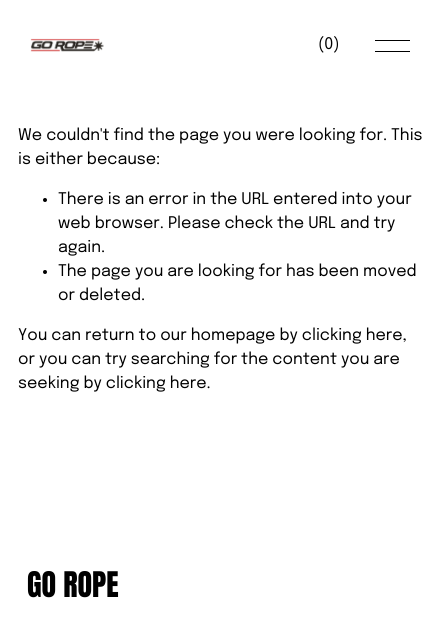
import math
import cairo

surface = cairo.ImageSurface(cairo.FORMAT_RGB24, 443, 634)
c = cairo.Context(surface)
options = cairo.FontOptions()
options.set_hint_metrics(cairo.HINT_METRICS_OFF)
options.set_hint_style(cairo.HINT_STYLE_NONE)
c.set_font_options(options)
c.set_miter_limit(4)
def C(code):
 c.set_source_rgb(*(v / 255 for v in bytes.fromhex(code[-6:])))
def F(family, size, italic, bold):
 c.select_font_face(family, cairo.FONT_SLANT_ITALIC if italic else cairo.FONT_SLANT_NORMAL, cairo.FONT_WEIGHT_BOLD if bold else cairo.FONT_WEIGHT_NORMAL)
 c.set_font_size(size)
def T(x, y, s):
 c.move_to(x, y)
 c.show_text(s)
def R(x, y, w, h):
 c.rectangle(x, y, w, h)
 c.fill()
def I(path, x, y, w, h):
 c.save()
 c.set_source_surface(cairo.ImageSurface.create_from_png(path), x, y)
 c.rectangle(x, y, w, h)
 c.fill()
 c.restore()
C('ffffff')
c.paint()
I('1.png',30,38,74,14)
F('Epilogue',16,0,0)
C('000000')
T(318,49,'(0)')
R(375,40,35,1)
R(375,51,35,1)
T(18,140,'We couldn\'t find the page you were looking for. This')
T(18,164,'is either because:')
c.new_path()
c.arc(45,200,2,0,2 * math.pi)
c.fill()
T(58,204,'There is an error in the URL entered into your')
T(58,228,'web browser. Please check the URL and try')
T(58,252,'again.')
c.new_path()
c.arc(45,272,2,0,2 * math.pi)
c.fill()
T(58,276,'The page you are looking for has been moved')
T(58,300,'or deleted.')
T(18,340,'You can return to our homepage by clicking here,')
T(18,364,'or you can try searching for the content you are')
T(18,388,'seeking by clicking here.')
F('Anton',30,0,0)
T(27,597,'GO ROPE')
surface.write_to_png('o.png')
